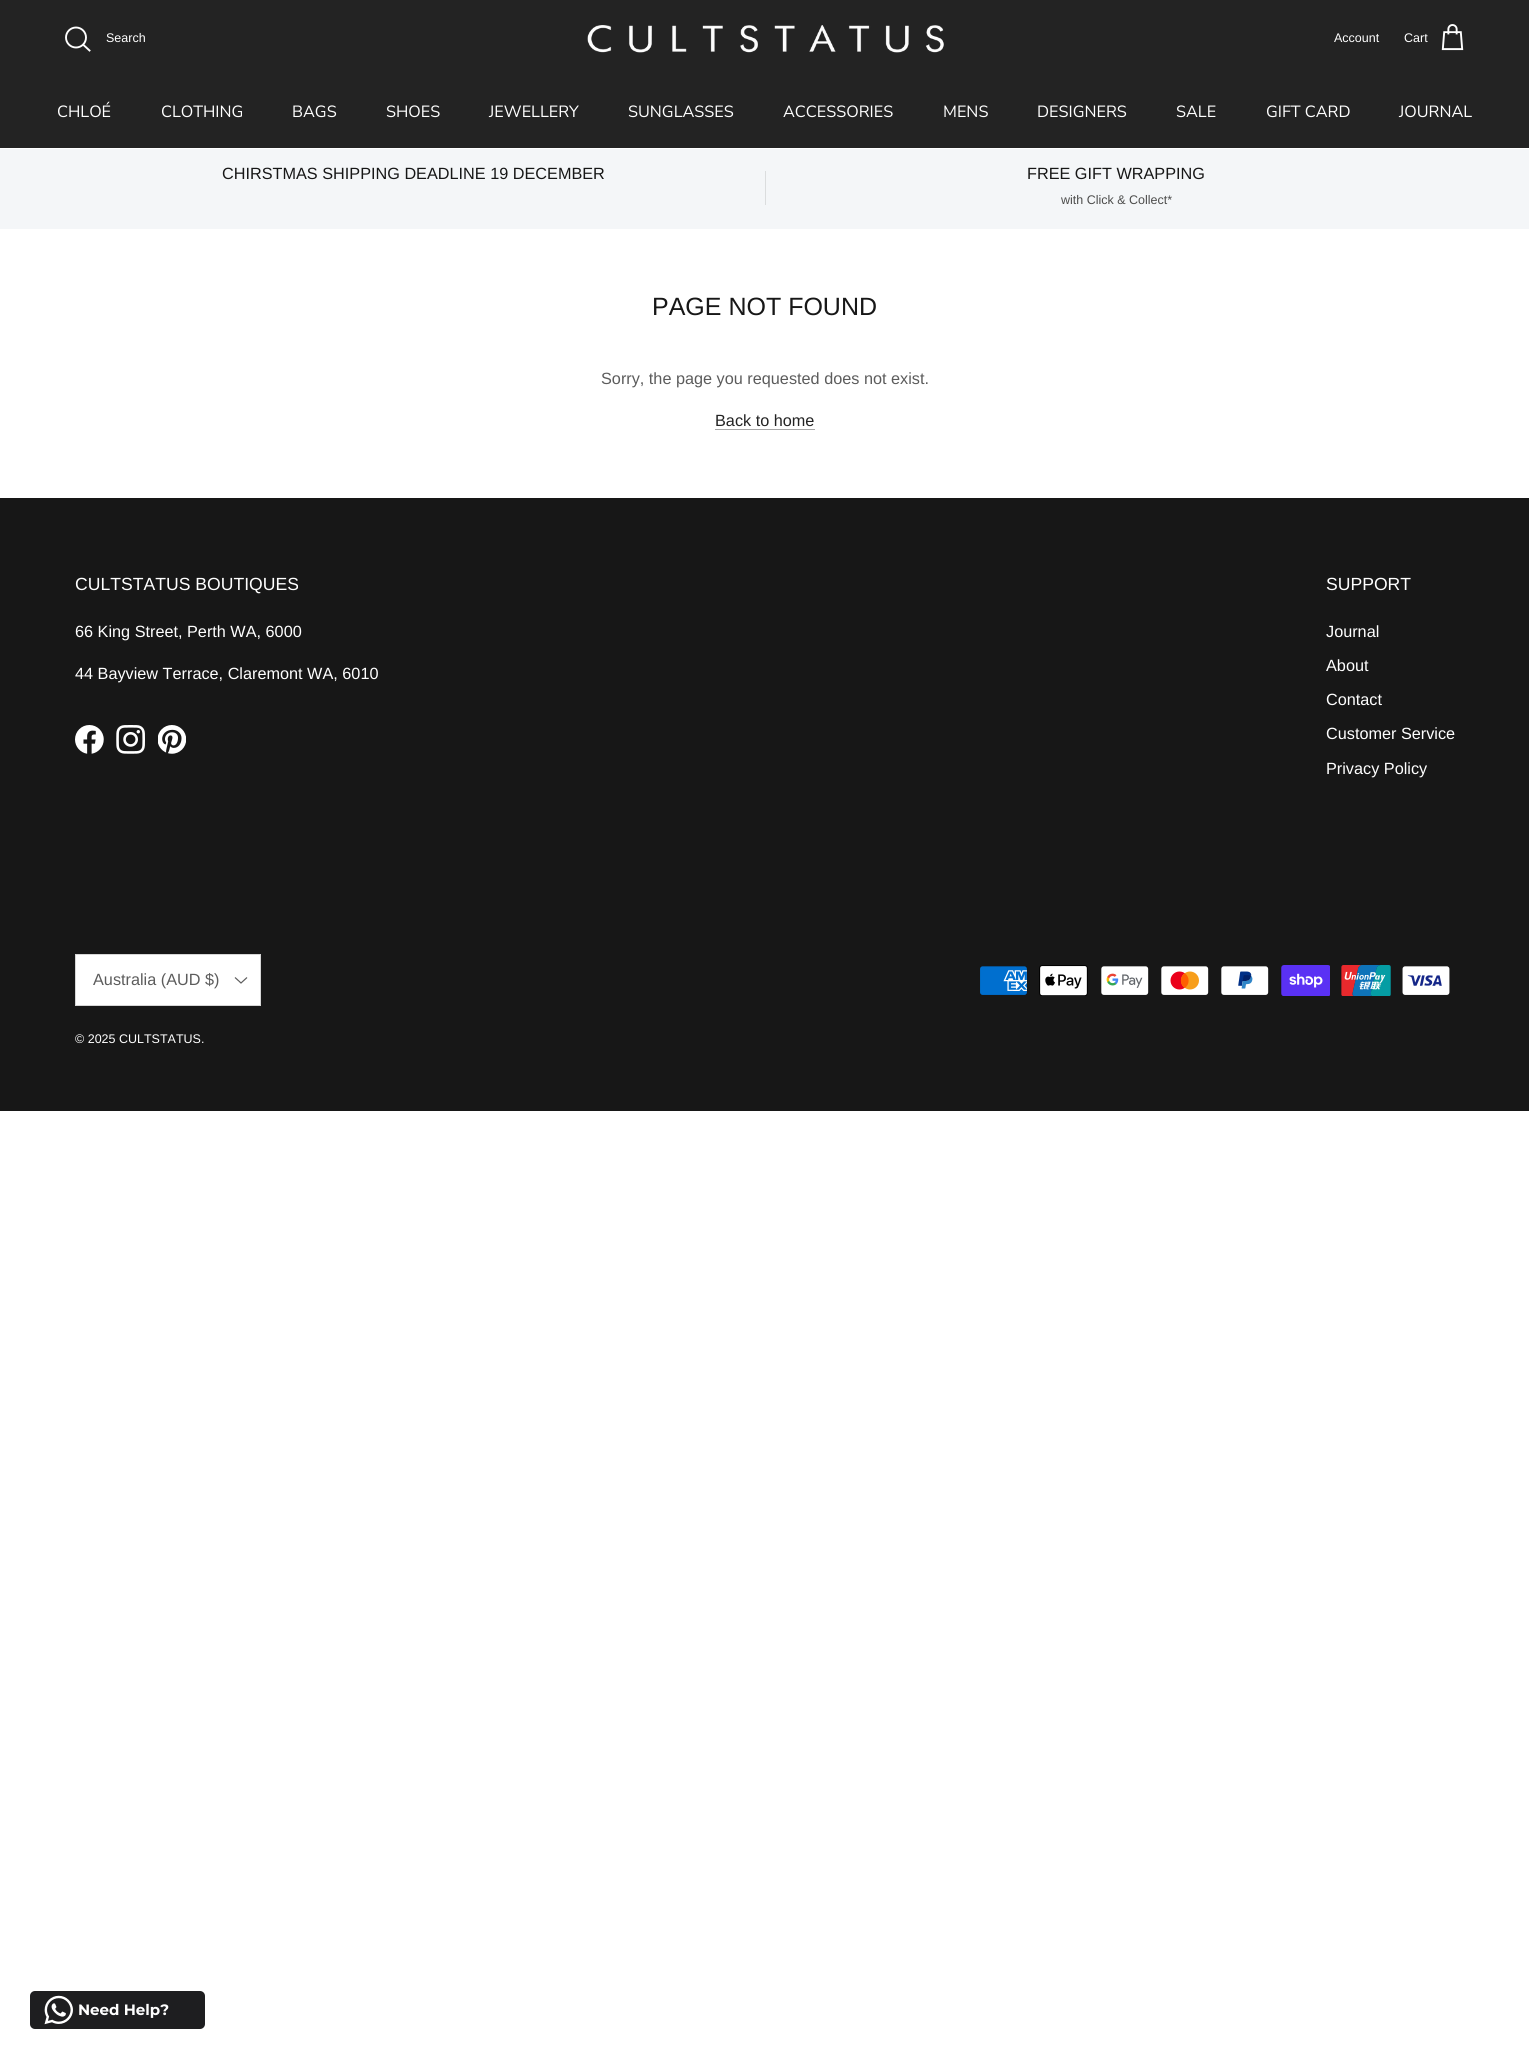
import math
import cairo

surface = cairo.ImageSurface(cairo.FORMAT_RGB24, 1529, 2053)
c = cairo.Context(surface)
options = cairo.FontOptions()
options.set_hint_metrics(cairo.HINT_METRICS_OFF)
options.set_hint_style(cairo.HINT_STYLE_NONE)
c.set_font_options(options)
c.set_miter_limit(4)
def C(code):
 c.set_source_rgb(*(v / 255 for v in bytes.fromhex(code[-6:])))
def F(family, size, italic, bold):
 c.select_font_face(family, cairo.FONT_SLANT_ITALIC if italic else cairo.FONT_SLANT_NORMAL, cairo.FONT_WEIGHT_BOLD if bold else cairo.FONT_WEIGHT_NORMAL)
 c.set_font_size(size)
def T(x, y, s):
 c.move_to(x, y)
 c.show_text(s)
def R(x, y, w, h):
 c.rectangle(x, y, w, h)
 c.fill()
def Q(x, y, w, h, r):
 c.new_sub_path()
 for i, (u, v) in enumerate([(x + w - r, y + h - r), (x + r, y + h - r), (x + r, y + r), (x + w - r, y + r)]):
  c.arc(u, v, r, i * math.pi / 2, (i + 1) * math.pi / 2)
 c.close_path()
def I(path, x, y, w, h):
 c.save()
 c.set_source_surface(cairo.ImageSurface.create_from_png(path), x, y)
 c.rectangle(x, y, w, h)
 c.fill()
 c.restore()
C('ffffff')
c.paint()
C('232323')
R(0,0,1529,148)
c.arc(76,37.5,10,0,2 * math.pi)
C('ffffff')
c.set_line_width(1.9)
c.stroke()
F('Liberation Sans',12.5,0,0)
T(106,42,'Search')
c.new_path()
c.move_to(83.5,45)
c.line_to(89.5,50.5)
c.set_line_cap(cairo.LINE_CAP_SQUARE)
c.stroke()
I('1.png',587,25,357,28)
T(1334,42,'Account')
T(1404,42,'Cart')
I('2.png',1441,24,23,27)
F('Nunito Sans',16.25,0,0)
T(57,117,'CHLOÉ')
T(161,117,'CLOTHING')
T(292,117,'BAGS')
T(386,117,'SHOES')
T(489,117,'JEWELLERY')
T(628,117,'SUNGLASSES')
T(783,117,'ACCESSORIES')
T(943,117,'MENS')
T(1037,117,'DESIGNERS')
T(1176,117,'SALE')
T(1266,117,'GIFT CARD')
T(1399,117,'JOURNAL')
C('f4f6f8')
R(0,149,1529,80)
F('Liberation Sans',16.25,0,0)
C('171717')
T(222,179,'CHIRSTMAS SHIPPING DEADLINE 19 DECEMBER')
C('dbddde')
R(765,171,1,34)
C('171717')
T(1027,179,'FREE GIFT WRAPPING')
F('Liberation Sans',12.5,0,0)
C('4c4c4b')
T(1061,204,'with Click & Collect*')
F('Liberation Sans',25,0,0)
C('171717')
T(652,315,'PAGE NOT FOUND')
F('Liberation Sans',16.25,0,0)
C('5c5c5c')
T(601,384,'Sorry, the page you requested does not exist.')
C('232323')
T(715,426,'Back to home')
C('a7a7a7')
R(715,429,100,1)
C('171717')
R(0,498,1529,613)
F('Liberation Sans',17.6,0,0)
C('ffffff')
T(75,590,'CULTSTATUS BOUTIQUES')
F('Liberation Sans',16.25,0,0)
T(75,637,'66 King Street, Perth WA, 6000')
T(75,679,'44 Bayview Terrace, Claremont WA, 6010')
I('3.png',75,725,29,29)
I('4.png',116,725,29,29)
I('5.png',158,725,28,29)
F('Liberation Sans',17.6,0,0)
T(1326,590,'SUPPORT')
F('Liberation Sans',16.25,0,0)
T(1326,637,'Journal')
T(1326,671,'About')
T(1326,705,'Contact')
T(1326,739,'Customer Service')
T(1326,774,'Privacy Policy')
c.rectangle(75.5,954.5,185,51)
c.fill_preserve()
C('d6d6d6')
c.set_line_width(1)
c.set_line_cap(cairo.LINE_CAP_BUTT)
c.stroke()
C('5c5c5c')
T(93,985,'Australia (AUD $)')
c.new_path()
c.move_to(247,977.5)
c.line_to(241,983)
c.line_to(235,977.5)
c.set_line_width(1.2)
c.stroke()
F('Liberation Sans',12.5,0,0)
C('ffffff')
T(75,1043,'© 2025 CULTSTATUS.')
I('6.png',980,966,47,29)
I('7.png',1039,965,49,31)
I('8.png',1101,966,48,29)
I('9.png',1161,966,48,29)
I('10.png',1221,966,48,29)
I('11.png',1281,965,49,31)
I('12.png',1341,965,50,31)
I('13.png',1402,966,48,29)
C('1e1e20')
Q(30,1991,175,38,5)
c.fill()
I('14.png',44,1995,29,30)
F('Montserrat',15,0,1)
C('ffffff')
T(78,2015,'Need Help?')
surface.write_to_png('o.png')
